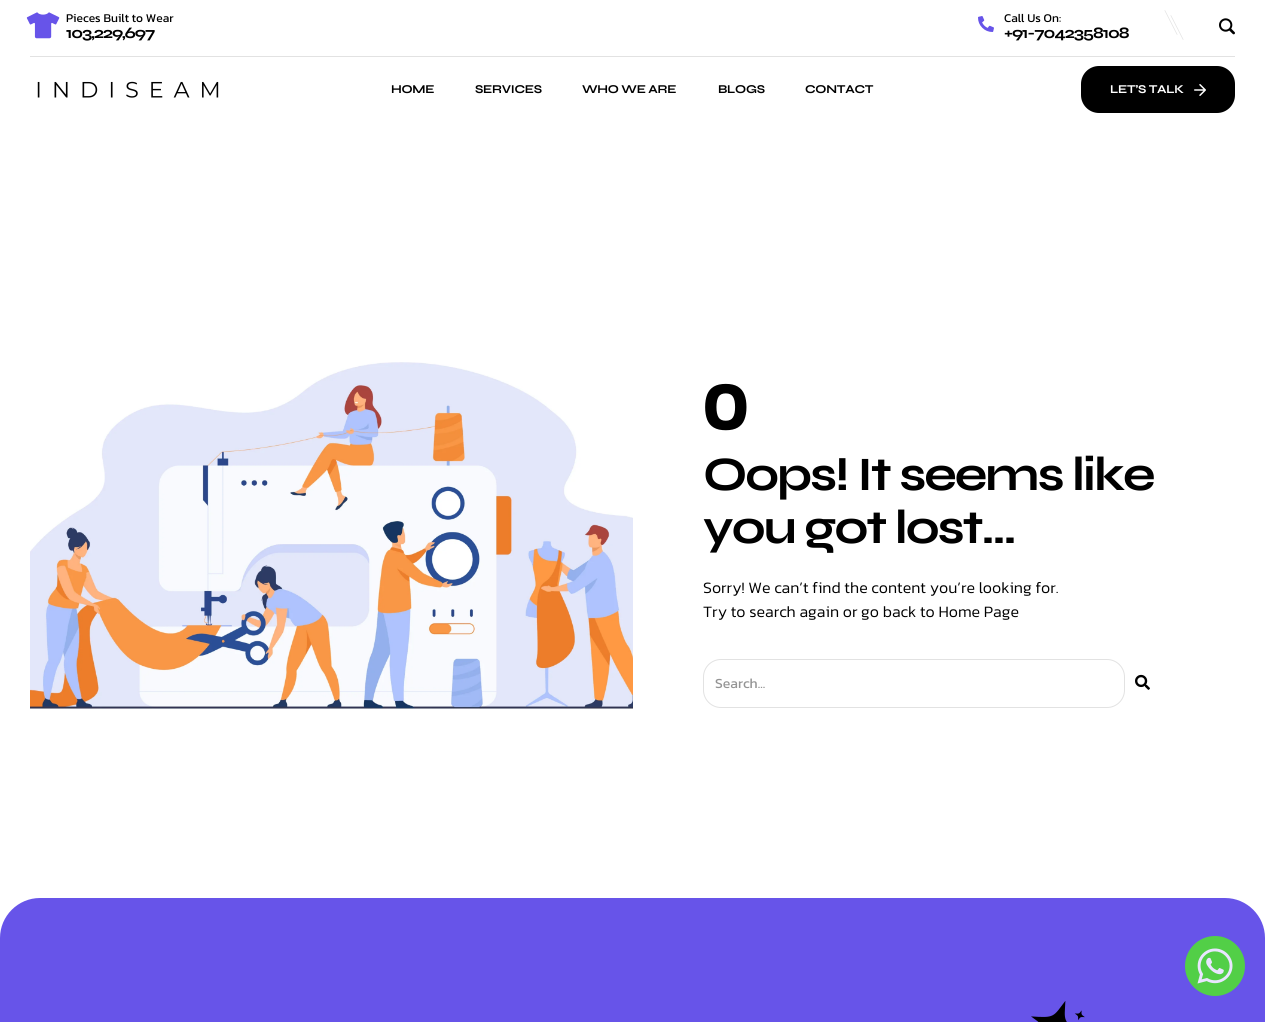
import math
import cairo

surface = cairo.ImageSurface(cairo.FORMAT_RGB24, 1265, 1022)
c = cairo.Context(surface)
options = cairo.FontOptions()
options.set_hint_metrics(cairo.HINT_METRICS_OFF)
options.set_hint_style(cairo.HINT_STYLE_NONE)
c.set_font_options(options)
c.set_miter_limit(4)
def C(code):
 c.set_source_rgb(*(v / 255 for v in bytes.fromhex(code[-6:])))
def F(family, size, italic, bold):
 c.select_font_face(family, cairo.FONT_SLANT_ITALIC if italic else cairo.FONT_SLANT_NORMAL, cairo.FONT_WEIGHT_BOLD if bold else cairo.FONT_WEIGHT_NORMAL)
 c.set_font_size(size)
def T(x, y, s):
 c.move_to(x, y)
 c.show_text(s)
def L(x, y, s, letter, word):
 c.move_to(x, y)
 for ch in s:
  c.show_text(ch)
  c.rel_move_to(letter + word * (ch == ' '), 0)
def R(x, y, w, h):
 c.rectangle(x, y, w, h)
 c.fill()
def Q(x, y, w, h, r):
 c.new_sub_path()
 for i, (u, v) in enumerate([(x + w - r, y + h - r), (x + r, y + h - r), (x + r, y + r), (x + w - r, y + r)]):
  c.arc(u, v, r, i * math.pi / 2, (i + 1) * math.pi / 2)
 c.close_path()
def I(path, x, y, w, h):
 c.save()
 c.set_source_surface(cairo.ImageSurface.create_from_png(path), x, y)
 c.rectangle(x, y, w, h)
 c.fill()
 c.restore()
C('ffffff')
c.paint()
I('1.png',26,12,34,27)
F('Kanit',12,0,0)
C('000000')
T(66,22,'Pieces Built to Wear')
F('Syne',16,0,1)
L(66,38,'103,229,697',-1,0)
I('2.png',978,16,16,16)
F('Kanit',12,0,0)
T(1004,22,'Call Us On:')
F('Syne',16,0,1)
L(1004,38,'+91-7042358108',-1,0)
C('e2e2e2')
c.new_path()
c.move_to(1171,15)
c.line_to(1183.5,39.5)
c.line_to(1183,40)
c.line_to(1170.5,15.5)
c.close_path()
c.move_to(1165,10)
c.line_to(1177.5,34.5)
c.line_to(1177,35)
c.line_to(1164.5,10.5)
c.close_path()
c.fill()
I('3.png',1219,18,16,17)
R(30,56,1205,1)
I('4.png',37,81,182,17)
F('Syne',12,0,1)
C('000000')
L(391,93,'HOME',-.25,0)
L(475,93,'SERVICES',-.25,0)
L(582,93,'WHO WE ARE',-.25,0)
L(718,93,'BLOGS',-.25,0)
L(805,93,'CONTACT',-.25,0)
Q(1081,66,154,47,18)
c.fill()
C('ffffff')
L(1110,93,'LET’S TALK',-.25,0)
I('5.png',1194,84,12,12)
I('6.png',30,362,603,347)
F('Kanit SemiBold',69,0,0)
C('000000')
T(703,429,'0')
F('Syne',48,0,1)
L(703,490,'Oops! It seems like',-2,0)
L(703,543,'you got lost...',-2,0)
F('Kanit Light',16,0,0)
T(703,593,'Sorry! We can’t find the content you’re looking for.')
T(703,617,'Try to search again or go back to Home Page')
Q(703.5,659.5,421,48,17.5)
C('e2e2e2')
c.set_line_width(1)
c.stroke()
F('Kanit',14,0,0)
C('949494')
T(715,688,'Search...')
I('7.png',1135,674,15,16)
C('6754e9')
c.new_path()
c.move_to(40,898)
c.line_to(1225,898)
c.curve_to(1247,898,1265,916,1265,938)
c.line_to(1265,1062)
c.line_to(0,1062)
c.line_to(0,938)
c.curve_to(0,916,18,898,40,898)
c.close_path()
c.fill()
C('52cf47')
c.arc(1215,966,30,0,2 * math.pi)
c.fill()
I('8.png',1197,948,36,36)
I('9.png',1031,1001,54,21)
surface.write_to_png('o.png')
